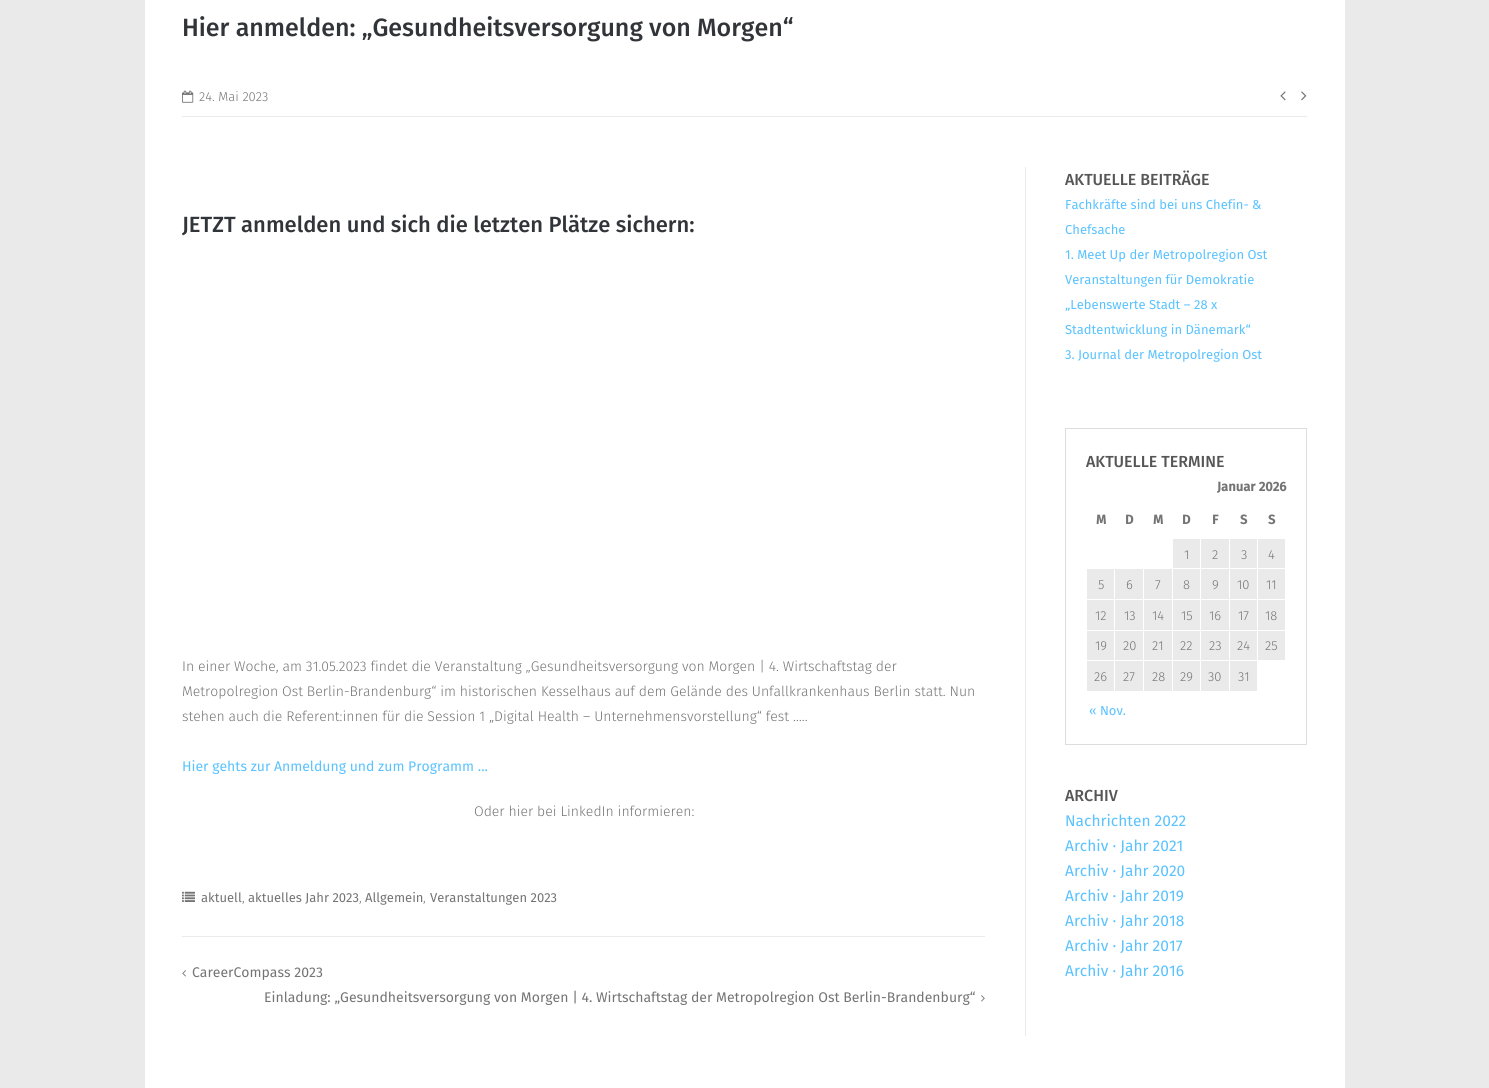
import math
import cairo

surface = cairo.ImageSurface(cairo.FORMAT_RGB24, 1489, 1088)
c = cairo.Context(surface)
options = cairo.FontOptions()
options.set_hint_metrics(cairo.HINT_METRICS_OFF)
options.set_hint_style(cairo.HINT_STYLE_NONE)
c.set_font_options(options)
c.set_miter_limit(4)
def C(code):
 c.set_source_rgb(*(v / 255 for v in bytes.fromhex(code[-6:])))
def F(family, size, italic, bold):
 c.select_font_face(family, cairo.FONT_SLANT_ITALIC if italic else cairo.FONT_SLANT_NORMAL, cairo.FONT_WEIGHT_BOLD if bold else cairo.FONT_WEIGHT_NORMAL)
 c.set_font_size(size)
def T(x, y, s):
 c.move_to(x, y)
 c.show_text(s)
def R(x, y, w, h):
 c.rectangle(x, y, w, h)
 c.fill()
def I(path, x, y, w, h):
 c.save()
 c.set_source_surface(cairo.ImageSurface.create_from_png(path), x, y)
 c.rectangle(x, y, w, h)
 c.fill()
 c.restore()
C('eaeaea')
c.paint()
C('ffffff')
R(145,0,1200,1088)
F('Fira Sans Medium',25,0,0)
C('313539')
T(182,36,'Hier anmelden: „Gesundheitsversorgung von Morgen“')
C('eaeaeb')
R(182,116,1125,1)
I('1.png',182,90,12,13)
F('Fira Sans Light',13,0,0)
C('747474')
T(199,101,'24. Mai 2023')
I('2.png',1280,91,6,10)
I('3.png',1301,91,6,10)
C('eaeaeb')
R(1025,167,1,869)
F('Fira Sans Medium',22,0,0)
C('313539')
T(182,232,'JETZT anmelden und sich die letzten Plätze sichern:')
F('Fira Sans Light',14,0,0)
C('747474')
T(182,671,'In einer Woche, am 31.05.2023 findet die Veranstaltung „Gesundheitsversorgung von Morgen | 4. Wirtschaftstag der')
T(182,696,'Metropolregion Ost Berlin-Brandenburg“ im historischen Kesselhaus auf dem Gelände des Unfallkrankenhaus Berlin statt. Nun')
T(182,721,'stehen auch die Referent:innen für die Session 1 „Digital Health – Unternehmensvorstellung“ fest …..')
F('Fira Sans',14,0,0)
C('59c2ff')
T(182,771,'Hier gehts zur Anmeldung und zum Programm ...')
F('Fira Sans Light',14,0,0)
C('747474')
T(474,816,'Oder hier bei LinkedIn informieren:')
I('4.png',182,891,13,11)
F('Fira Sans',13,0,0)
T(201,902,'aktuell')
F('Fira Sans Light',13,0,0)
T(242,902,',')
F('Fira Sans',13,0,0)
T(248,902,'aktuelles Jahr 2023')
F('Fira Sans Light',13,0,0)
T(359,902,',')
F('Fira Sans',13,0,0)
T(365,902,'Allgemein')
F('Fira Sans Light',13,0,0)
T(423,902,',')
F('Fira Sans',13,0,0)
T(430,902,'Veranstaltungen 2023')
C('eaeaeb')
R(182,936,803,1)
I('5.png',182,970,4,7)
F('Fira Sans',14,0,0)
C('747474')
T(192,977,'CareerCompass 2023')
T(264,1002,'Einladung: „Gesundheitsversorgung von Morgen | 4. Wirtschaftstag der Metropolregion Ost Berlin-Brandenburg“')
I('6.png',981,995,4,7)
F('Fira Sans Medium',16,0,0)
C('565656')
T(1065,185,'AKTUELLE BEITRÄGE')
F('Fira Sans',13,0,0)
C('59c2ff')
T(1065,209,'Fachkräfte sind bei uns Chefin- &')
T(1065,234,'Chefsache')
T(1065,259,'1. Meet Up der Metropolregion Ost')
T(1065,284,'Veranstaltungen für Demokratie')
T(1065,309,'„Lebenswerte Stadt – 28 x')
T(1065,334,'Stadtentwicklung in Dänemark“')
T(1065,359,'3. Journal der Metropolregion Ost')
c.rectangle(1065.5,428.5,241,316)
C('dddddd')
c.set_line_width(1)
c.stroke()
F('Fira Sans Medium',16,0,0)
C('565656')
T(1086,467,'AKTUELLE TERMINE')
F('Fira Sans',13,0,1)
C('747474')
T(1217,491,'Januar 2026')
T(1096,524,'M')
T(1125,524,'D')
T(1153,524,'M')
T(1182,524,'D')
T(1212,524,'F')
T(1240,524,'S')
T(1268,524,'S')
C('eaeaea')
R(1173,539,27,29)
F('Fira Sans Light',13,0,0)
C('747474')
T(1184,559,'1')
C('eaeaea')
R(1201,539,28,29)
C('747474')
T(1212,559,'2')
C('eaeaea')
R(1230,539,27,29)
C('747474')
T(1241,559,'3')
C('eaeaea')
R(1258,539,27,29)
C('747474')
T(1268,559,'4')
C('eaeaea')
R(1087,569,27,30)
C('747474')
T(1098,589,'5')
C('eaeaea')
R(1115,569,28,30)
C('747474')
T(1126,589,'6')
C('eaeaea')
R(1144,569,28,30)
C('747474')
T(1155,589,'7')
C('eaeaea')
R(1173,569,27,30)
C('747474')
T(1183,589,'8')
C('eaeaea')
R(1201,569,28,30)
C('747474')
T(1212,589,'9')
C('eaeaea')
R(1230,569,27,30)
C('747474')
T(1237,589,'10')
C('eaeaea')
R(1258,569,27,30)
C('747474')
T(1266,589,'11')
C('eaeaea')
R(1087,600,27,30)
C('747474')
T(1095,620,'12')
C('eaeaea')
R(1115,600,28,30)
C('747474')
T(1124,620,'13')
C('eaeaea')
R(1144,600,28,30)
C('747474')
T(1152,620,'14')
C('eaeaea')
R(1173,600,27,30)
C('747474')
T(1181,620,'15')
C('eaeaea')
R(1201,600,28,30)
C('747474')
T(1209,620,'16')
C('eaeaea')
R(1230,600,27,30)
C('747474')
T(1238,620,'17')
C('eaeaea')
R(1258,600,27,30)
C('747474')
T(1265,620,'18')
C('eaeaea')
R(1087,631,27,29)
C('747474')
T(1095,650,'19')
C('eaeaea')
R(1115,631,28,29)
C('747474')
T(1123,650,'20')
C('eaeaea')
R(1144,631,28,29)
C('747474')
T(1152,650,'21')
C('eaeaea')
R(1173,631,27,29)
C('747474')
T(1180,650,'22')
C('eaeaea')
R(1201,631,28,29)
C('747474')
T(1209,650,'23')
C('eaeaea')
R(1230,631,27,29)
C('747474')
T(1237,650,'24')
C('eaeaea')
R(1258,631,27,29)
C('747474')
T(1265,650,'25')
C('eaeaea')
R(1087,661,27,30)
C('747474')
T(1094,681,'26')
C('eaeaea')
R(1115,661,28,30)
C('747474')
T(1123,681,'27')
C('eaeaea')
R(1144,661,28,30)
C('747474')
T(1152,681,'28')
C('eaeaea')
R(1173,661,27,30)
C('747474')
T(1180,681,'29')
C('eaeaea')
R(1201,661,28,30)
C('747474')
T(1208,681,'30')
C('eaeaea')
R(1230,661,27,30)
C('747474')
T(1238,681,'31')
F('Fira Sans',13,0,0)
C('59c2ff')
T(1089,715,'« Nov.')
F('Fira Sans Medium',16,0,0)
C('565656')
T(1065,801,'ARCHIV')
F('Fira Sans',15.5,0,0)
C('59c2ff')
T(1065,826,'Nachrichten 2022')
T(1065,851,'Archiv · Jahr 2021')
T(1065,876,'Archiv · Jahr 2020')
T(1065,901,'Archiv · Jahr 2019')
T(1065,926,'Archiv · Jahr 2018')
T(1065,951,'Archiv · Jahr 2017')
T(1065,976,'Archiv · Jahr 2016')
surface.write_to_png('o.png')
